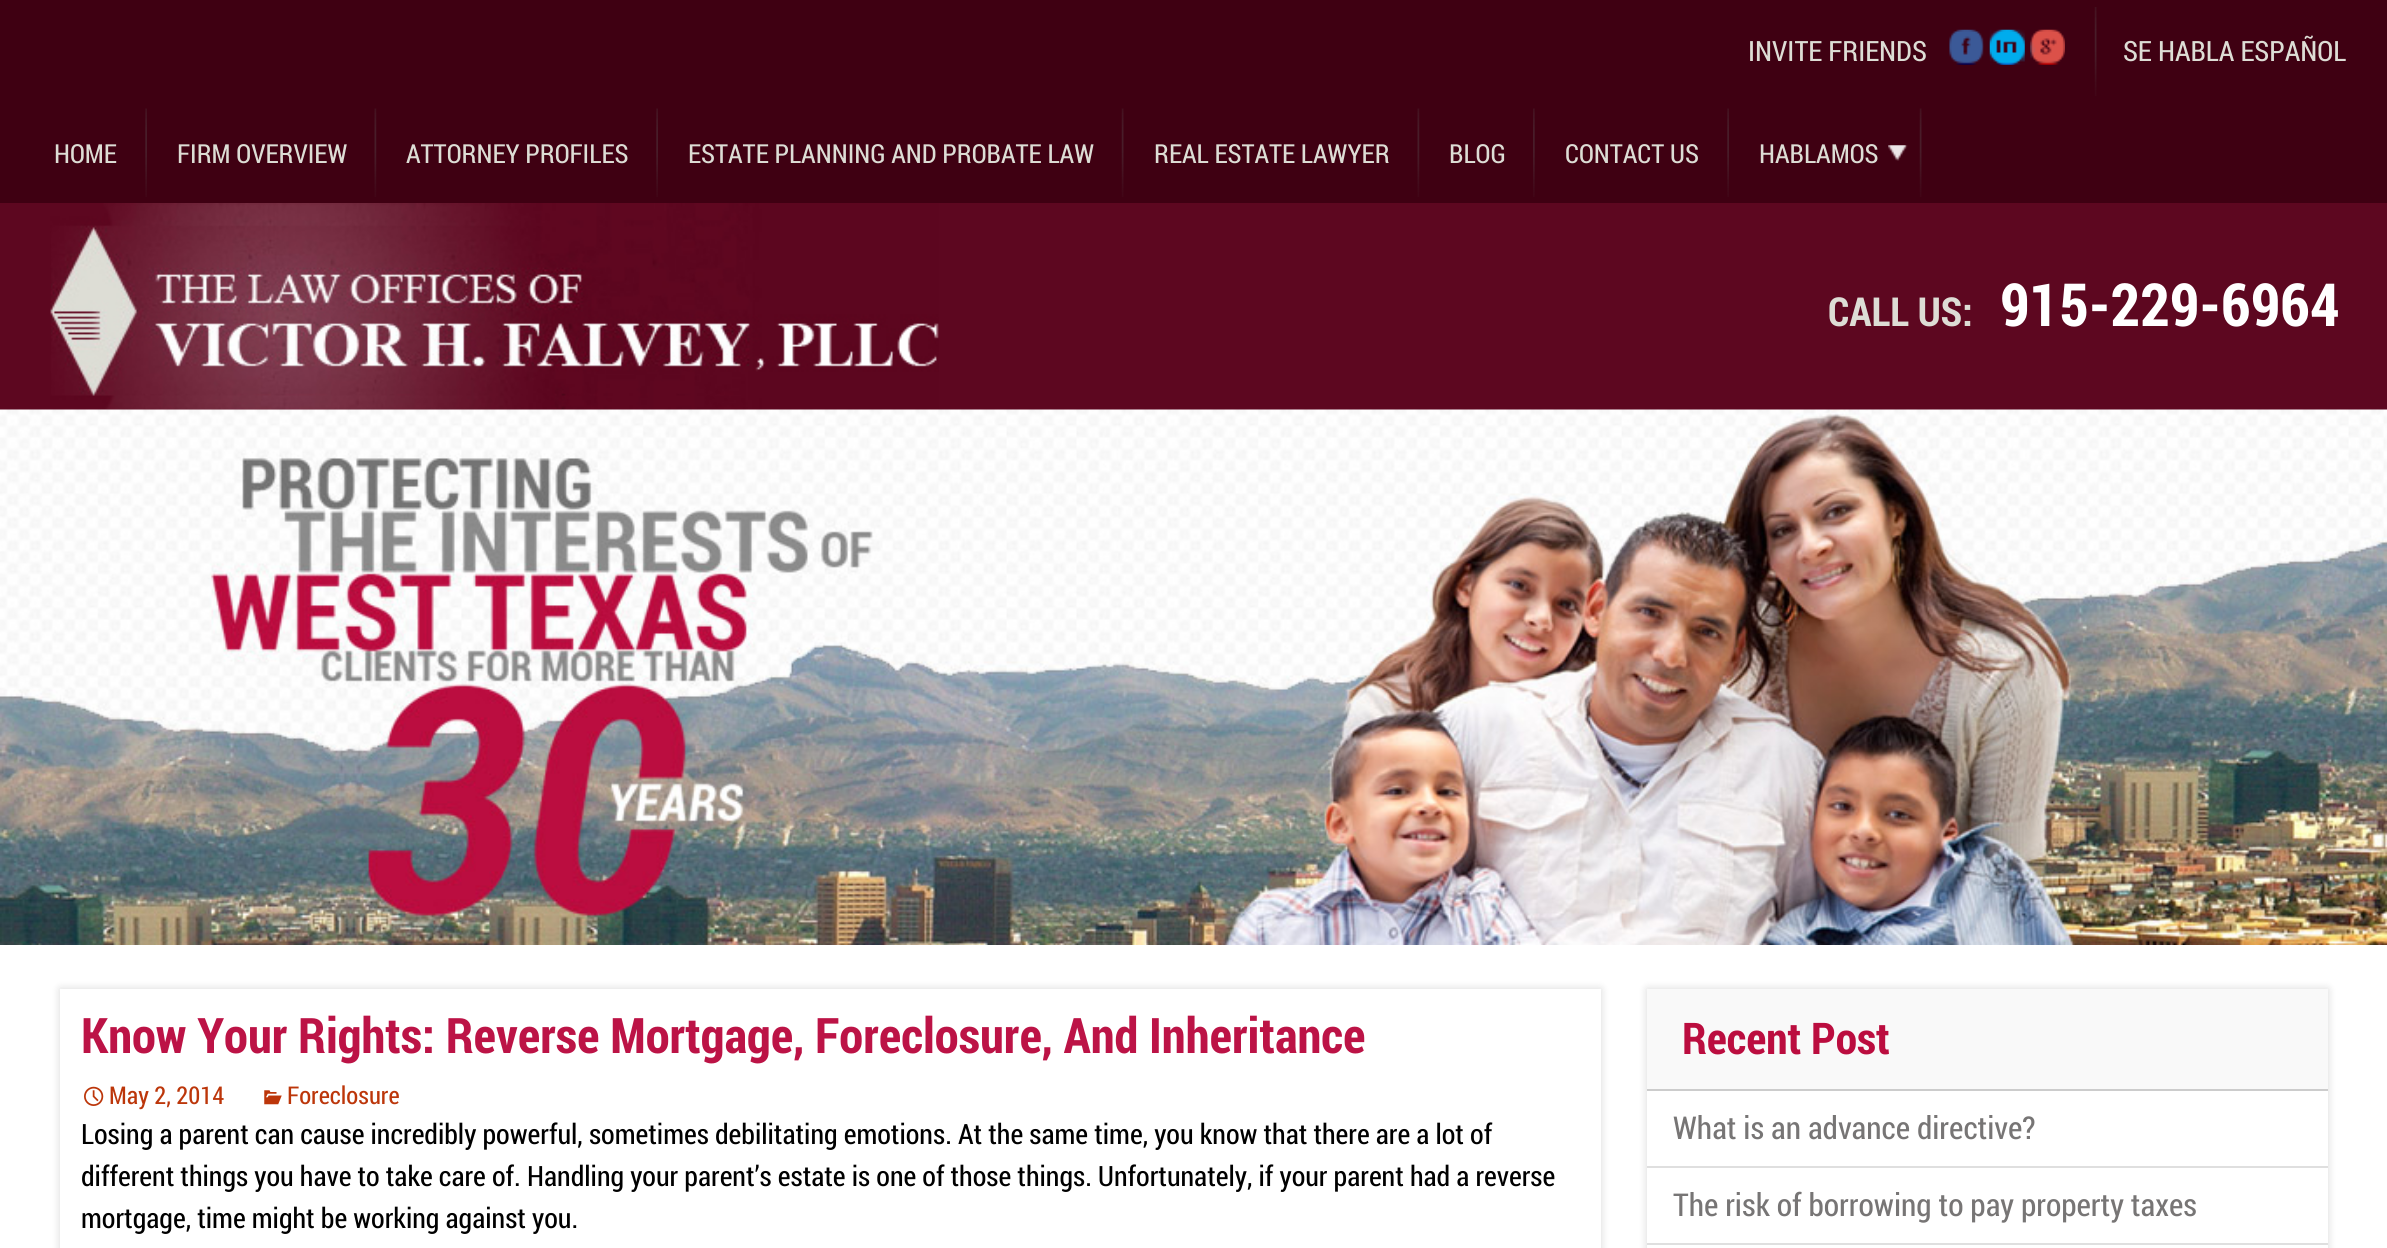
import math
import cairo

surface = cairo.ImageSurface(cairo.FORMAT_RGB24, 2387, 1248)
c = cairo.Context(surface)
options = cairo.FontOptions()
options.set_hint_metrics(cairo.HINT_METRICS_OFF)
options.set_hint_style(cairo.HINT_STYLE_NONE)
c.set_font_options(options)
c.set_miter_limit(4)
def C(code):
 c.set_source_rgb(*(v / 255 for v in bytes.fromhex(code[-6:])))
def F(family, size, italic, bold):
 c.select_font_face(family, cairo.FONT_SLANT_ITALIC if italic else cairo.FONT_SLANT_NORMAL, cairo.FONT_WEIGHT_BOLD if bold else cairo.FONT_WEIGHT_NORMAL)
 c.set_font_size(size)
def T(x, y, s):
 c.move_to(x, y)
 c.show_text(s)
def R(x, y, w, h):
 c.rectangle(x, y, w, h)
 c.fill()
def Q(x, y, w, h, r):
 c.new_sub_path()
 for i, (u, v) in enumerate([(x + w - r, y + h - r), (x + r, y + h - r), (x + r, y + r), (x + w - r, y + r)]):
  c.arc(u, v, r, i * math.pi / 2, (i + 1) * math.pi / 2)
 c.close_path()
def S(x, y, w, h, r, blur, alpha):
 c.push_group_with_content(cairo.CONTENT_ALPHA)
 c.set_operator(cairo.OPERATOR_SOURCE)
 for i in range(15, -16, -2):
  e = blur * i / 6
  if min(w, h) + 2 * e > 0:
   c.set_source_rgba(0, 0, 0, alpha * math.erfc((i - 1) / 8.5) / 2)
   Q(x - e, y - e, w + 2 * e, h + 2 * e, max(0, min(r + e + blur * .6, min(w, h) / 2 + e)))
   c.fill()
 c.mask(c.pop_group())
def I(path, x, y, w, h):
 c.save()
 c.set_source_surface(cairo.ImageSurface.create_from_png(path), x, y)
 c.rectangle(x, y, w, h)
 c.fill()
 c.restore()
C('ffffff')
c.paint()
C('3f0012')
R(0,0,2387,203)
I('1.png',2094,7,3,89)
F('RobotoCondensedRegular',28,0,0)
C('ddddd5')
T(1748,61,'INVITE FRIENDS')
I('2.png',1949,29,35,36)
I('3.png',1989,29,36,36)
I('4.png',2030,29,35,36)
T(2123,61,'SE HABLA ESPAÑOL')
I('5.png',145,108,2,89)
F('RobotoCondensedRegular',26.25,0,0)
T(54,163,'HOME')
I('6.png',374,108,3,89)
T(177,163,'FIRM OVERVIEW')
I('5.png',656,108,2,89)
T(406,163,'ATTORNEY PROFILES')
I('7.png',1121,108,3,89)
T(688,163,'ESTATE PLANNING AND PROBATE LAW')
I('6.png',1417,108,3,89)
T(1154,163,'REAL ESTATE LAWYER')
I('8.png',1533,108,2,89)
T(1449,163,'BLOG')
I('5.png',1727,108,2,89)
T(1565,163,'CONTACT US')
I('7.png',1919,108,3,89)
I('9.png',1888,145,20,16)
T(1759,163,'HABLAMOS')
C('5d0720')
R(0,203,2387,207)
I('10.png',50,203,889,207)
F('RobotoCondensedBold',40,0,1)
C('ddddd5')
T(1828,326,'CALL US:')
F('RobotoCondensedBold',59.5,0,1)
C('ffffff')
T(2000,326,'915-229-6964')
I('11.png',0,409,2387,536)
c.save()
c.set_fill_rule(cairo.FILL_RULE_EVEN_ODD)
c.new_path()
c.move_to(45,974)
c.line_to(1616,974)
c.line_to(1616,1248)
c.line_to(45,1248)
c.close_path()
c.move_to(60,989)
c.line_to(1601,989)
c.line_to(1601,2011)
c.line_to(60,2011)
c.close_path()
c.clip()
C('000000')
S(60,989,1541,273,0,4.5,.15)
c.restore()
F('RobotoCondensedBold',49,0,1)
C('bc1346')
T(81,1053,'Know Your Rights: Reverse Mortgage, Foreclosure, And Inheritance')
I('12.png',84,1086,20,20)
F('RobotoCondensedRegular',24.5,0,0)
C('bc360a')
T(109,1104,'May 2, 2014')
I('13.png',264,1090,18,15)
T(287,1104,'Foreclosure')
F('RobotoCondensedRegular',28,0,0)
C('000000')
T(81,1144,'Losing a parent can cause incredibly powerful, sometimes debilitating emotions. At the same time, you know that there are a lot of')
T(81,1186,'different things you have to take care of. Handling your parent’s estate is one of those things. Unfortunately, if your parent had a reverse')
T(81,1228,'mortgage, time might be working against you.')
C('000000')
S(1647,989,681,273,0,4.5,.15)
C('ffffff')
R(1647,1091,681,157)
C('f9f9f9')
R(1647,989,681,100)
C('cccccc')
R(1647,1089,681,2)
F('RobotoCondensedBold',43.75,0,1)
C('bb0d3f')
T(1682,1054,'Recent Post')
C('dfdfdf')
R(1647,1166,681,2)
F('RobotoCondensedRegular',31.5,0,0)
C('777575')
T(1673,1139,'What is an advance directive?')
C('dfdfdf')
R(1647,1243,681,2)
C('777575')
T(1673,1216,'The risk of borrowing to pay property taxes')
surface.write_to_png('o.png')
